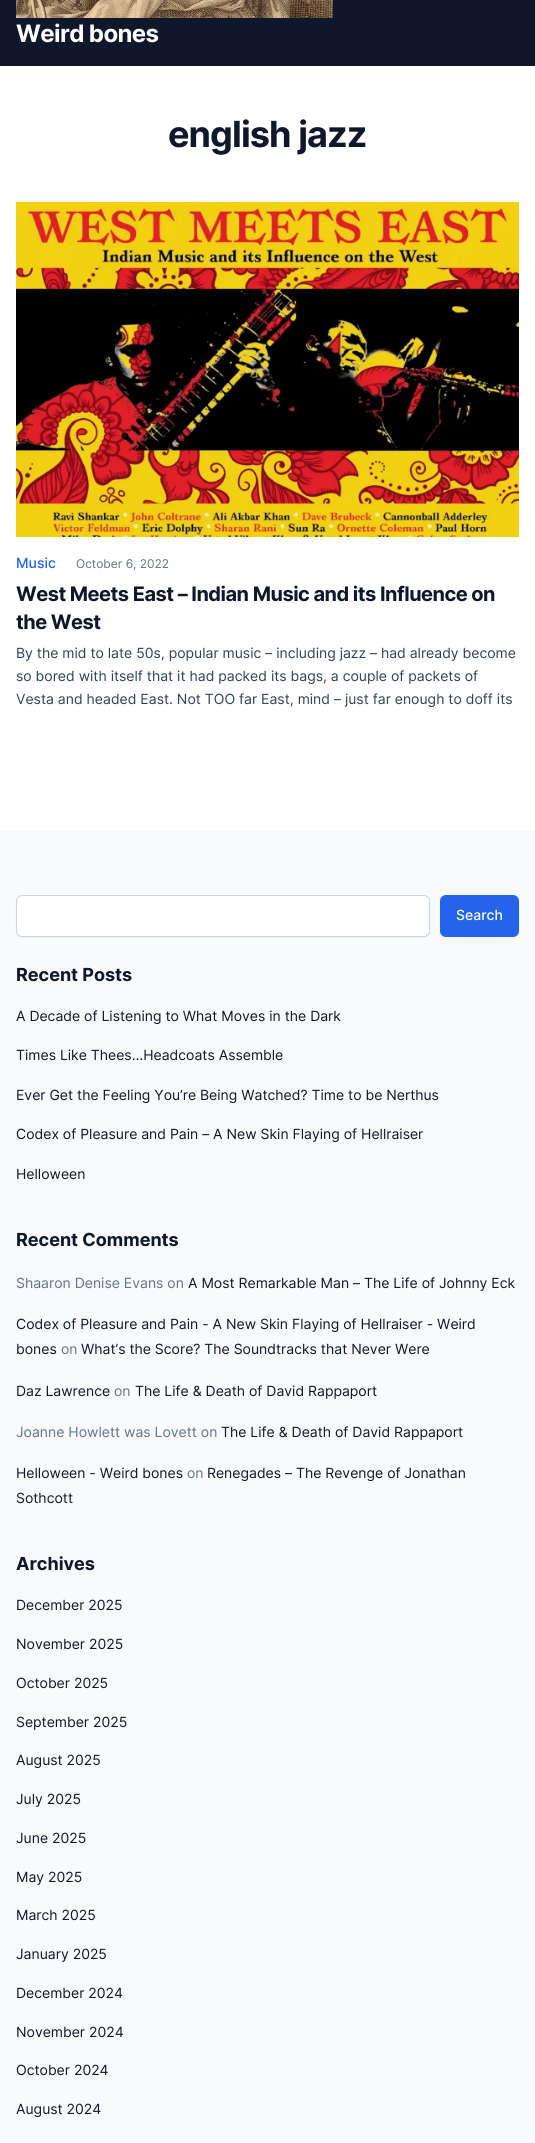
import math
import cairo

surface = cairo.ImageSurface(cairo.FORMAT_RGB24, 535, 2143)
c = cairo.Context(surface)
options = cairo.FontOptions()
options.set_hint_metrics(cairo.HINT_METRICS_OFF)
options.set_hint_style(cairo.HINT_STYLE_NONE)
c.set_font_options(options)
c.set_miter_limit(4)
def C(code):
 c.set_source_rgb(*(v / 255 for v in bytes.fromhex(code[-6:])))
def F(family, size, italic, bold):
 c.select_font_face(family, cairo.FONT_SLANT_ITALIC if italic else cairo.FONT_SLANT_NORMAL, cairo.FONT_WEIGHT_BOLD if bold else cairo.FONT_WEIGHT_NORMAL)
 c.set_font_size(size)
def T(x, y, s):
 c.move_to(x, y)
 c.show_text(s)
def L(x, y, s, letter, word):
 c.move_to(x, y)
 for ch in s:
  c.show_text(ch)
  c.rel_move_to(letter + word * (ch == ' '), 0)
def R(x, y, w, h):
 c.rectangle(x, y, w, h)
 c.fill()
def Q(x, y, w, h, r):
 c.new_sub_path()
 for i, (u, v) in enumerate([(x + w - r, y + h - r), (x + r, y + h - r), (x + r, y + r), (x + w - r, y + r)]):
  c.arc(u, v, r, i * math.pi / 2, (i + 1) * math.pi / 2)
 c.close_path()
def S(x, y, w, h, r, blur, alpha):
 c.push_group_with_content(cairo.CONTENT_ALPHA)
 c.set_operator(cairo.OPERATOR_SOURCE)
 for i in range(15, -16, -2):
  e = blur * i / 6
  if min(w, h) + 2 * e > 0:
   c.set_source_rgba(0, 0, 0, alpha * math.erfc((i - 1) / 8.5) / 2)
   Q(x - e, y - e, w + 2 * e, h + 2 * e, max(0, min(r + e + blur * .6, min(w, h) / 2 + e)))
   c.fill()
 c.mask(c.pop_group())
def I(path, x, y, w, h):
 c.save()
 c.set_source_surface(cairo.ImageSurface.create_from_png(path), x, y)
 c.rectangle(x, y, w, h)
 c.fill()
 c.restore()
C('ffffff')
c.paint()
C('0f172a')
R(0,0,535,66)
I('1.png',16,0,317,18)
F('Inter',24,0,1)
C('ffffff')
L(16,42,'Weird bones',-.6,0)
F('Inter',36,0,1)
C('0f172a')
L(168,147,'english jazz',-.9,0)
I('2.png',16,202,503,335)
F('Inter Medium',14,0,0)
C('2563eb')
T(16,568,'Music')
F('Inter',12,0,0)
C('64748b')
T(76,568,'October 6, 2022')
F('Inter',20,0,1)
C('0f172a')
L(16,601,'West Meets East – Indian Music and its Influence on',-.5,0)
L(16,629,'the West',-.5,0)
F('Inter',14,0,0)
C('334155')
T(16,658,'By the mid to late 50s, popular music – including jazz – had already become')
T(16,681,'so bored with itself that it had packed its bags, a couple of packets of')
T(16,704,'Vesta and headed East. Not TOO far East, mind – just far enough to doff its')
C('f8fafc')
R(0,831,535,1312)
C('000000')
S(16,896,414,42,6,1,.05)
C('ffffff')
Q(16.5,895.5,413,41,5.5)
c.fill_preserve()
C('cbd5e1')
c.set_line_width(1)
c.stroke()
C('000000')
S(440,896,79,42,6,1,.05)
C('2563eb')
Q(440,895,79,42,6)
c.fill()
F('Inter Medium',14,0,0)
C('ffffff')
T(456,920,'Search')
F('Inter',18,0,1)
C('0f172a')
T(16,981,'Recent Posts')
F('Inter',14,0,0)
T(16,1021,'A Decade of Listening to What Moves in the Dark')
T(16,1060,'Times Like Thees…Headcoats Assemble')
T(16,1100,'Ever Get the Feeling You’re Being Watched? Time to be Nerthus')
T(16,1139,'Codex of Pleasure and Pain – A New Skin Flaying of Hellraiser')
T(16,1179,'Helloween')
F('Inter',18,0,1)
T(16,1246,'Recent Comments')
F('Inter',14,0,0)
C('64748b')
T(16,1288,'Shaaron Denise Evans on')
C('0f172a')
T(188,1288,'A Most Remarkable Man – The Life of Johnny Eck')
T(16,1329,'Codex of Pleasure and Pain - A New Skin Flaying of Hellraiser - Weird')
T(16,1354,'bones')
C('64748b')
T(61,1354,'on')
C('0f172a')
T(81,1354,'What’s the Score? The Soundtracks that Never Were')
T(16,1396,'Daz Lawrence')
C('64748b')
T(114,1396,'on')
C('0f172a')
T(135,1396,'The Life & Death of David Rappaport')
C('64748b')
T(16,1437,'Joanne Howlett was Lovett on')
C('0f172a')
T(221,1437,'The Life & Death of David Rappaport')
T(16,1478,'Helloween - Weird bones')
C('64748b')
T(187,1478,'on')
C('0f172a')
T(207,1478,'Renegades – The Revenge of Jonathan')
T(16,1503,'Sothcott')
F('Inter',18,0,1)
T(16,1570,'Archives')
F('Inter',14,0,0)
T(16,1610,'December 2025')
T(16,1649,'November 2025')
T(16,1688,'October 2025')
T(16,1727,'September 2025')
T(16,1765,'August 2025')
T(16,1804,'July 2025')
T(16,1843,'June 2025')
T(16,1882,'May 2025')
T(16,1920,'March 2025')
T(16,1959,'January 2025')
T(16,1998,'December 2024')
T(16,2037,'November 2024')
T(16,2075,'October 2024')
T(16,2114,'August 2024')
surface.write_to_png('o.png')
